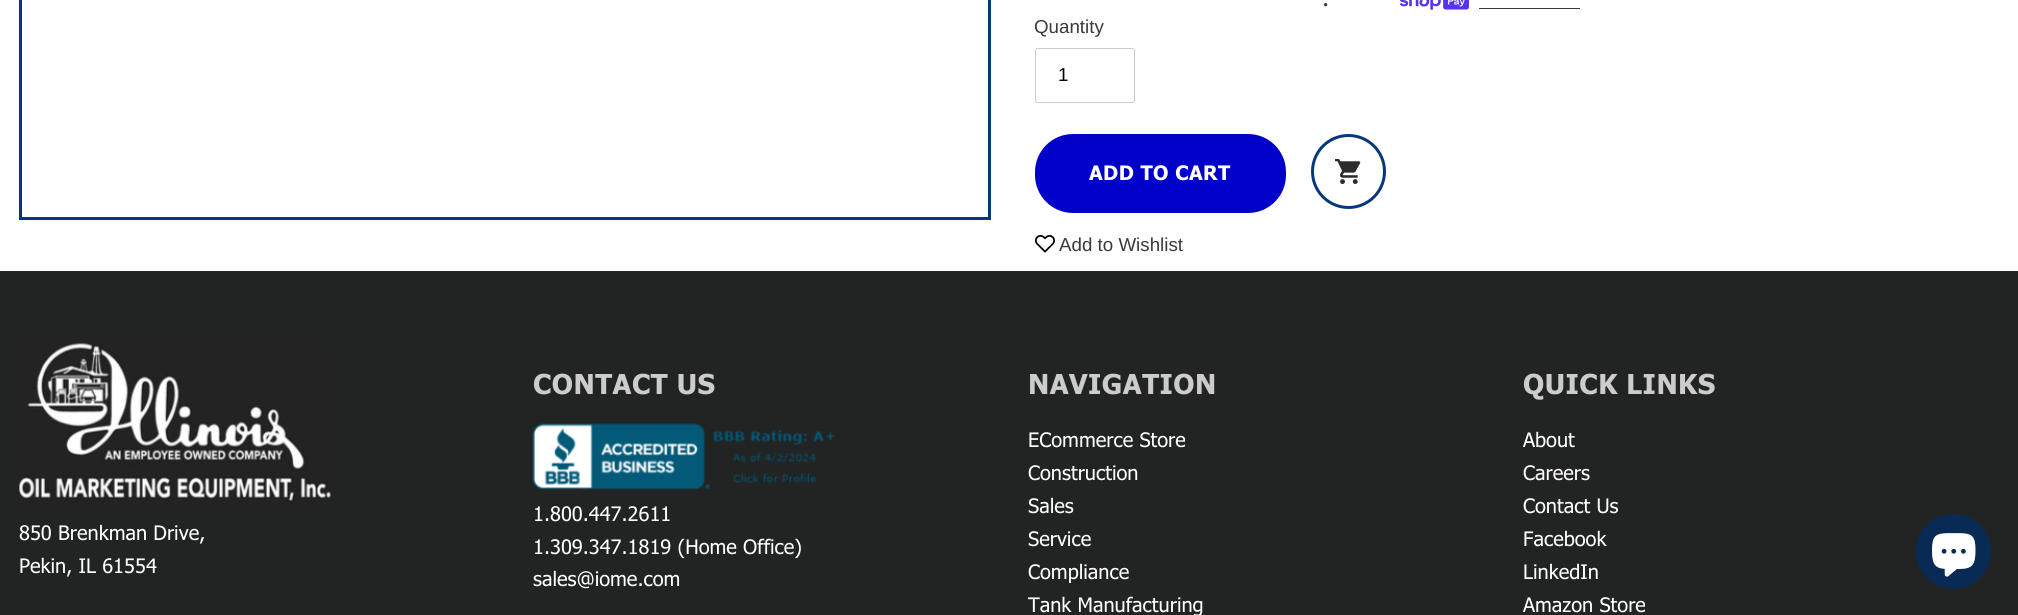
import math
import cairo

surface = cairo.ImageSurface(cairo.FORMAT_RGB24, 2018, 615)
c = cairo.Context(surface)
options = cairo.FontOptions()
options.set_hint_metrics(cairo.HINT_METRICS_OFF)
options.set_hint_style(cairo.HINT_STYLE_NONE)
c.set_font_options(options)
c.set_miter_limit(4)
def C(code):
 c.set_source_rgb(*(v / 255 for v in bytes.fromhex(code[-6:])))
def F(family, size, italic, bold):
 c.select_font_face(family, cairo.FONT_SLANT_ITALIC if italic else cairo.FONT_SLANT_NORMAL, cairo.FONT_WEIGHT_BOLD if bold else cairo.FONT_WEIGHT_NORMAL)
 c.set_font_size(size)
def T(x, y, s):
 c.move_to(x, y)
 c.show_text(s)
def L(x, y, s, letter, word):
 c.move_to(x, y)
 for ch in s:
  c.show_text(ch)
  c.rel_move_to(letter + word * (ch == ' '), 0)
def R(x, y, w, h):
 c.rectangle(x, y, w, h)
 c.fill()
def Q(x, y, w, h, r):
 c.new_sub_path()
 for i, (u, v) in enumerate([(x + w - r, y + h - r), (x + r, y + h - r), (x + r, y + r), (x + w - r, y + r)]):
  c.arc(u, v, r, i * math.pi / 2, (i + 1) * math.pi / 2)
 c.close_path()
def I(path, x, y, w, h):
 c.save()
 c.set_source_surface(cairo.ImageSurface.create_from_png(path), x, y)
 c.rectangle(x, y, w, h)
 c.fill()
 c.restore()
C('ffffff')
c.paint()
c.rectangle(20.5,-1.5,969,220)
C('07357e')
c.set_line_width(3)
c.stroke()
F('Noto Sans',18.75,0,1)
C('3a3a3a')
T(1323,6,'.')
I('1.png',1399,0,70,10)
R(1479,8,101,1)
F('Liberation Sans',18.75,0,0)
T(1034,33,'Quantity')
Q(1035.5,48.5,99,54,2)
C('cccccc')
c.set_line_width(1)
c.stroke()
C('000000')
T(1058,81,'1')
C('0101ca')
Q(1035,134,251,79,38)
c.fill()
F('Tahoma',20,0,1)
C('ffffff')
L(1089,180,'ADD TO CART',.4,0)
c.new_path()
c.arc(1348.5,171.5,36,0,2 * math.pi)
C('07357e')
c.set_line_width(3)
c.stroke()
I('2.png',1335,159,26,25)
I('3.png',1035,235,20,18)
F('Liberation Sans',18.75,0,0)
C('3a3a3a')
T(1059,251,'Add to Wishlist')
C('222323')
R(0,271,2018,344)
I('4.png',19,343,312,159)
F('Tahoma',20,0,0)
C('ffffff')
T(19,540,'850 Brenkman Drive,')
T(19,573,'Pekin, IL 61554')
F('Tahoma',27.5,0,1)
C('cccccc')
L(533,394,'CONTACT US',.5,0)
I('5.png',532,423,304,67)
F('Tahoma',20,0,0)
C('ffffff')
T(533,521,'1.800.447.2611')
T(533,554,'1.309.347.1819 (Home Office)')
T(533,586,'sales@iome.com')
F('Tahoma',27.5,0,1)
C('cccccc')
L(1028,394,'NAVIGATION',.5,0)
F('Tahoma',20,0,0)
C('ffffff')
T(1028,447,'ECommerce Store')
T(1028,480,'Construction')
T(1028,513,'Sales')
T(1028,546,'Service')
T(1028,579,'Compliance')
T(1028,612,'Tank Manufacturing')
F('Tahoma',27.5,0,1)
C('cccccc')
L(1523,394,'QUICK LINKS',.5,0)
F('Tahoma',20,0,0)
C('ffffff')
T(1523,447,'About')
T(1523,480,'Careers')
T(1523,513,'Contact Us')
T(1523,546,'Facebook')
T(1523,579,'LinkedIn')
T(1523,612,'Amazon Store')
C('082b56')
c.new_path()
c.arc(1953.5,551.5,37.5,0,2 * math.pi)
c.fill()
I('6.png',1932,533,44,44)
surface.write_to_png('o.png')
